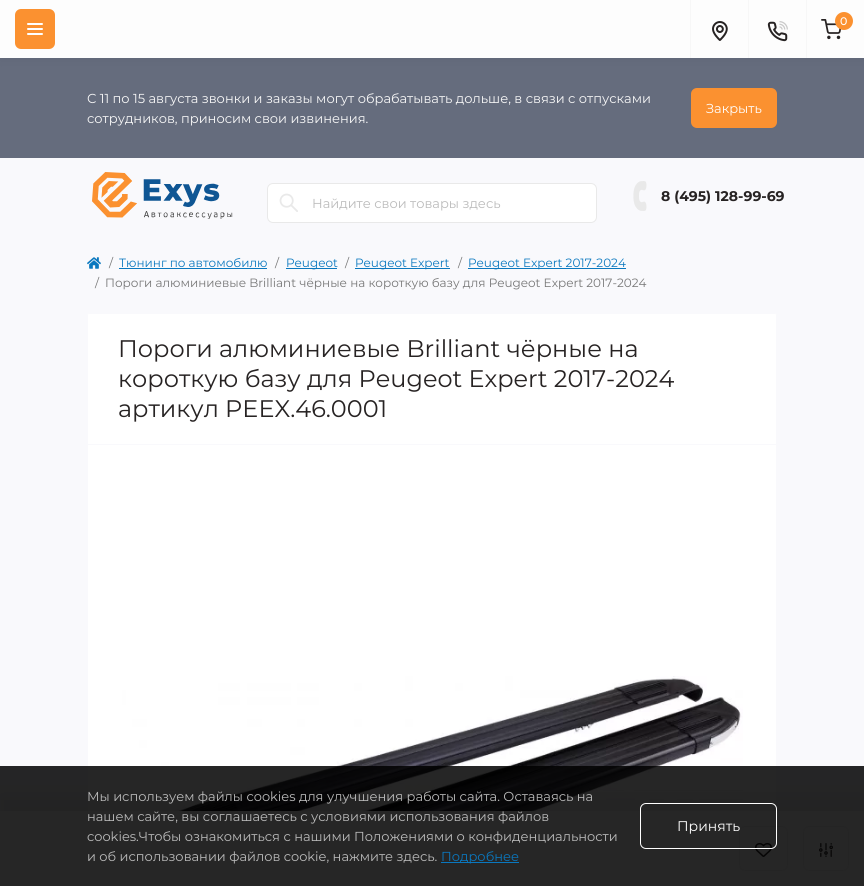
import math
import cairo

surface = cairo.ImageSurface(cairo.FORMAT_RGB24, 864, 886)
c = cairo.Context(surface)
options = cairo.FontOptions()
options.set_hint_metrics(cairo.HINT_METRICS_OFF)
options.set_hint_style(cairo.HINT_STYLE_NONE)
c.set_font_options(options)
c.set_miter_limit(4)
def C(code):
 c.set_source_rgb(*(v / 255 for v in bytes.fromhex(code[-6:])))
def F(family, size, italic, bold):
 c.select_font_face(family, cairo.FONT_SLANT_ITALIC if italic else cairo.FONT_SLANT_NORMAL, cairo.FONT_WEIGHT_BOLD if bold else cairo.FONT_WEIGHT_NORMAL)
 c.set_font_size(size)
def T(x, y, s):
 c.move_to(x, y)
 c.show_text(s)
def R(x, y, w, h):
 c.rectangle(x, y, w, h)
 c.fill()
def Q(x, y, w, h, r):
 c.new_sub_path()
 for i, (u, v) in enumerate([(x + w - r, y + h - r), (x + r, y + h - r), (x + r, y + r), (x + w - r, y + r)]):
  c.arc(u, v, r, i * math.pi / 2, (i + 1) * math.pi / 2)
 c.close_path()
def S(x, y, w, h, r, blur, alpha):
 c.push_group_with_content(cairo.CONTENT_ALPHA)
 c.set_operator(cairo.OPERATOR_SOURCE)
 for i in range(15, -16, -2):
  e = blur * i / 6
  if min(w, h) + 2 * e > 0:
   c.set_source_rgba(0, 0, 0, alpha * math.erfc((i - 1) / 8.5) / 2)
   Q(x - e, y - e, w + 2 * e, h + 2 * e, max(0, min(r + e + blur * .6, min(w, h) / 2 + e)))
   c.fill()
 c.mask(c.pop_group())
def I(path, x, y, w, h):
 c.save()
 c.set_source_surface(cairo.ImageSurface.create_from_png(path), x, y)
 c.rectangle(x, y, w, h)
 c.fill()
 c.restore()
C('f9f9fc')
c.paint()
C('656c7d')
R(0,58,864,100)
C('000000')
S(0,0,864,58,0,7.5,.06)
C('fdfdfd')
R(0,0,864,58)
C('fb9130')
Q(15,9,40,40,6)
c.fill()
C('ffffff')
Q(27,23,16,2,1)
c.fill()
Q(27,28,16,2,1)
c.fill()
Q(27,33,16,2,1)
c.fill()
C('f7f7f7')
R(690,0,1,58)
I('1.png',712,21,16,20)
R(748,0,1,58)
I('2.png',767,21,21,21)
R(806,0,1,58)
I('3.png',821,19,21,21)
C('fb9130')
c.arc(844,21,9,0,2 * math.pi)
c.fill()
F('Montserrat Medium',11,0,0)
C('ffffff')
T(840,25,'0')
I('4.png',92,172,141,47)
Q(267.5,183.5,329,39,5.5)
c.fill_preserve()
C('e9e9e9')
c.set_line_width(1)
c.stroke()
I('5.png',279,193,19,19)
F('Montserrat',13,0,0)
C('bbbbbb')
T(312,208,'Найдите свои товары здесь')
I('6.png',633,181,14,30)
F('Montserrat',14,0,1)
C('272323')
T(661,201,'8 (495) 128-99-69')
F('Montserrat',13,0,0)
C('f8f8f8')
T(87,103,'С 11 по 15 августа звонки и заказы могут обрабатывать дольше, в связи с отпусками')
T(87,123,'сотрудников, приносим свои извинения.')
C('fb9130')
Q(691,88,86,40,6)
c.fill()
C('ffffff')
T(706,113,'Закрыть')
I('7.png',87,257,14,12)
F('Montserrat',12,0,0)
C('777777')
T(109,267,'/')
C('0a78bf')
T(119,267,'Тюнинг по автомобилю')
R(119,268,148,1)
C('777777')
T(275,267,'/')
C('0a78bf')
R(286,268,51,1)
T(286,267,'Peugeot')
C('777777')
T(345,267,'/')
C('0a78bf')
R(355,268,95,1)
T(355,267,'Peugeot Expert')
C('777777')
T(458,267,'/')
C('0a78bf')
R(468,268,158,1)
T(468,267,'Peugeot Expert 2017-2024')
C('777777')
T(95,287,'/')
T(105,287,'Пороги алюминиевые Brilliant чёрные на короткую базу для Peugeot Expert 2017-2024')
C('ffffff')
Q(87.5,313.5,689,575,1.5)
c.fill_preserve()
C('f9f9fc')
c.stroke()
R(88,444,688,1)
F('Montserrat',24,0,0)
C('272323')
T(118,357,'Пороги алюминиевые Brilliant чёрные на')
T(118,387,'короткую базу для Peugeot Expert 2017-2024')
T(118,417,'артикул PEEX.46.0001')
I('8.png',122,676,621,135)
C('000000')
S(0,796,864,75,0,7.5,.06)
C('fdfdfd')
R(0,811,864,75)
Q(739.5,826.5,48,44,5.5)
C('f4f4f4')
c.stroke()
I('9.png',755,843,17,14)
Q(803.5,826.5,45,44,5.5)
c.stroke()
I('10.png',819,843,14,14)
c.set_source_rgba(0,0,0,0.85)
R(0,766,864,120)
F('Montserrat',13,0,0)
C('bbbbbb')
T(87,801,'Мы используем файлы cookies для улучшения работы сайта. Оставаясь на')
T(87,821,'нашем сайте, вы соглашаетесь с условиями использования файлов')
T(87,841,'cookies.Чтобы ознакомиться с нашими Положениями о конфиденциальности')
T(87,861,'и об использовании файлов cookie, нажмите здесь.')
C('0a78bf')
R(441,862,78,1)
T(441,861,'Подробнее')
Q(640.5,803.5,136,45,5.5)
C('ffffff')
c.stroke()
F('Montserrat',14,0,0)
T(677,831,'Принять')
surface.write_to_png('o.png')
